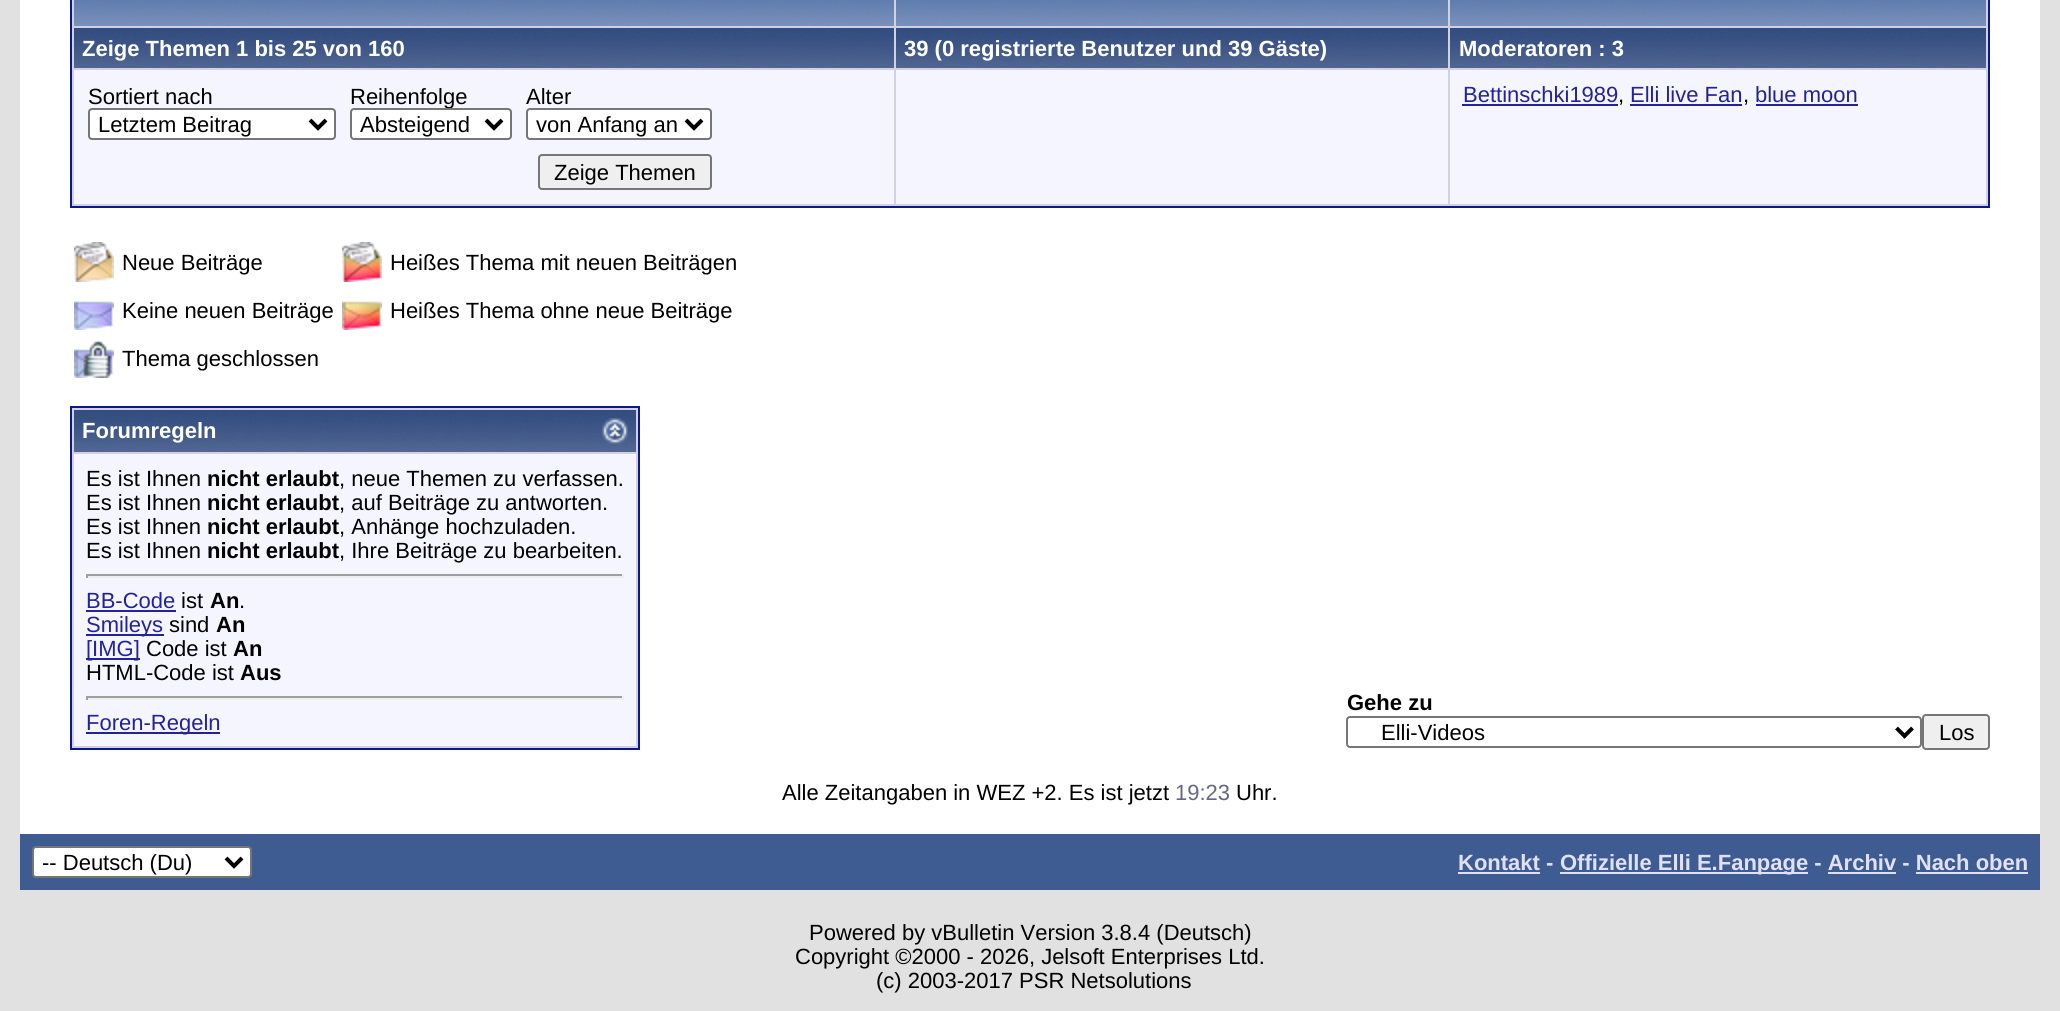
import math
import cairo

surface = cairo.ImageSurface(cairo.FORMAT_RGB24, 2060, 1011)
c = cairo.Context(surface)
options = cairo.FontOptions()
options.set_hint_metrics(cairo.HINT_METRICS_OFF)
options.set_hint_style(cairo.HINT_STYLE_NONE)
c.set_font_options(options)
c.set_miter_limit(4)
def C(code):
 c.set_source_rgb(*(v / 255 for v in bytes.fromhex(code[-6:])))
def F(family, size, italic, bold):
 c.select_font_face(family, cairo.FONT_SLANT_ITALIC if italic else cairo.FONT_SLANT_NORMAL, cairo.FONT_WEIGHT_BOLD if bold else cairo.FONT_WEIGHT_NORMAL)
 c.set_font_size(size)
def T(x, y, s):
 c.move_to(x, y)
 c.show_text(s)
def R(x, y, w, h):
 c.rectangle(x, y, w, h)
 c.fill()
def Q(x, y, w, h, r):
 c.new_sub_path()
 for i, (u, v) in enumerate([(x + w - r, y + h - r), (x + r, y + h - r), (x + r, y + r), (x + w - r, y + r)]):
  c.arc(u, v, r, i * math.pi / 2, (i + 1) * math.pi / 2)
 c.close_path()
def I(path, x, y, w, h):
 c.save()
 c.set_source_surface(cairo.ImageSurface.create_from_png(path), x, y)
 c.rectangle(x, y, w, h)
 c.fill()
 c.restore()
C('e1e1e2')
c.paint()
C('ffffff')
R(20,0,2020,834)
C('d1d1e1')
c.rectangle(71,-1,1918,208)
c.fill_preserve()
C('0b198c')
c.stroke()
I('1.png',74,0,820,26)
I('2.png',896,0,552,26)
I('3.png',1450,0,536,26)
I('4.png',74,28,820,40)
F('Liberation Sans',22,0,1)
C('ffffff')
T(82,56,'Zeige Themen 1 bis 25 von 160')
I('5.png',896,28,552,40)
T(904,56,'39 (0 registrierte Benutzer und 39 Gäste)')
I('6.png',1450,28,536,40)
T(1459,56,'Moderatoren : 3')
C('f5f5ff')
R(74,70,820,134)
F('Liberation Sans',22,0,0)
C('000000')
T(88,104,'Sortiert nach')
C('ffffff')
Q(89,109,246,30,3)
c.fill_preserve()
C('767676')
c.stroke()
c.new_path()
c.move_to(310,120)
c.line_to(318,128)
c.line_to(326,120)
C('000000')
c.set_line_width(4)
c.stroke()
T(98,132,'Letztem Beitrag')
T(350,104,'Reihenfolge')
C('ffffff')
Q(351,109,160,30,3)
c.fill_preserve()
C('767676')
c.set_line_width(2)
c.stroke()
c.new_path()
c.move_to(486,120)
c.line_to(494,128)
c.line_to(502,120)
C('000000')
c.set_line_width(4)
c.stroke()
T(360,132,'Absteigend')
T(526,104,'Alter')
C('ffffff')
Q(527,109,184,30,3)
c.fill_preserve()
C('767676')
c.set_line_width(2)
c.stroke()
c.new_path()
c.move_to(686,120)
c.line_to(694,128)
c.line_to(702,120)
C('000000')
c.set_line_width(4)
c.stroke()
T(536,132,'von Anfang an')
C('efefef')
Q(539,155,172,34,3)
c.fill_preserve()
C('767676')
c.set_line_width(2)
c.stroke()
C('000000')
T(554,180,'Zeige Themen')
C('f5f5ff')
R(896,70,552,134)
R(1450,70,536,134)
C('22229c')
T(1463,102,'Bettinschki1989')
R(1462,104,156,2)
C('000000')
T(1618,102,',')
C('22229c')
T(1630,102,'Elli live Fan')
R(1630,104,112,2)
C('000000')
T(1743,102,',')
C('22229c')
T(1755,102,'blue moon')
R(1756,104,102,2)
I('7.png',74,242,40,40)
C('000000')
T(122,270,'Neue Beiträge')
I('8.png',342,242,40,40)
T(390,270,'Heißes Thema mit neuen Beiträgen')
I('9.png',74,301,40,29)
T(122,318,'Keine neuen Beiträge')
I('10.png',342,301,40,29)
T(390,318,'Heißes Thema ohne neue Beiträge')
I('11.png',74,341,40,37)
T(122,366,'Thema geschlossen')
C('d1d1e1')
c.rectangle(71,407,568,342)
c.fill_preserve()
C('0b198c')
c.stroke()
I('12.png',74,410,562,42)
F('Liberation Sans',22,0,1)
C('ffffff')
T(82,438,'Forumregeln')
I('13.png',602,418,26,26)
C('f5f5ff')
R(74,454,562,292)
F('Liberation Sans',22,0,0)
C('000000')
T(86,486,'Es ist Ihnen')
F('Liberation Sans',22,0,1)
T(207,486,'nicht erlaubt')
F('Liberation Sans',22,0,0)
T(339,486,', neue Themen zu verfassen.')
T(86,510,'Es ist Ihnen')
F('Liberation Sans',22,0,1)
T(207,510,'nicht erlaubt')
F('Liberation Sans',22,0,0)
T(339,510,', auf Beiträge zu antworten.')
T(86,534,'Es ist Ihnen')
F('Liberation Sans',22,0,1)
T(207,534,'nicht erlaubt')
F('Liberation Sans',22,0,0)
T(339,534,', Anhänge hochzuladen.')
T(86,558,'Es ist Ihnen')
F('Liberation Sans',22,0,1)
T(207,558,'nicht erlaubt')
F('Liberation Sans',22,0,0)
T(339,558,', Ihre Beiträge zu bearbeiten.')
C('9f9f9f')
R(86,574,538,2)
C('eeeeee')
R(622,574,2,4)
R(86,576,538,2)
C('9f9f9f')
R(86,574,2,4)
C('22229c')
T(86,608,'BB-Code')
R(86,610,90,2)
C('000000')
T(181,608,'ist')
F('Liberation Sans',22,0,1)
T(210,608,'An')
F('Liberation Sans',22,0,0)
T(239,608,'.')
C('22229c')
R(86,634,78,2)
T(86,632,'Smileys')
C('000000')
T(169,632,'sind')
F('Liberation Sans',22,0,1)
T(216,632,'An')
C('22229c')
R(86,658,54,2)
F('Liberation Sans',22,0,0)
T(86,656,'[IMG]')
C('000000')
T(146,656,'Code ist')
F('Liberation Sans',22,0,1)
T(233,656,'An')
F('Liberation Sans',22,0,0)
T(86,680,'HTML-Code ist')
F('Liberation Sans',22,0,1)
T(240,680,'Aus')
C('9f9f9f')
R(86,696,538,2)
C('eeeeee')
R(622,696,2,4)
R(86,698,538,2)
C('9f9f9f')
R(86,696,2,4)
C('22229c')
R(86,732,134,2)
F('Liberation Sans',22,0,0)
T(86,730,'Foren-Regeln')
F('Liberation Sans',22,0,1)
C('000000')
T(1347,710,'Gehe zu')
Q(1347,717,574,30,3)
C('767676')
c.stroke()
c.new_path()
c.move_to(1896.5,728)
c.line_to(1904.5,736)
c.line_to(1912.5,728)
C('000000')
c.set_line_width(4)
c.stroke()
F('Liberation Sans',22,0,0)
T(1381,740,'Elli-Videos')
C('efefef')
Q(1923,715,66,34,3)
c.fill_preserve()
C('767676')
c.set_line_width(2)
c.stroke()
C('000000')
T(1939,740,'Los')
T(782,800,'Alle Zeitangaben in WEZ +2. Es ist jetzt')
C('666686')
T(1175,800,'19:23')
C('000000')
T(1236,800,'Uhr.')
C('3e5c92')
R(20,834,2020,56)
C('ffffff')
Q(33,847,218,30,3)
c.fill_preserve()
C('767676')
c.stroke()
c.new_path()
c.move_to(226,858)
c.line_to(234,866)
c.line_to(242,858)
C('000000')
c.set_line_width(4)
c.stroke()
T(42,870,'-- Deutsch (Du)')
F('Liberation Sans',22,0,1)
C('e0e0f6')
T(1458,870,'Kontakt -')
R(1458,872,82,2)
R(1560,872,248,2)
T(1560,870,'Offizielle Elli E.Fanpage - Archiv - Nach oben')
R(1828,872,68,2)
R(1916,872,112,2)
F('Liberation Sans',22,0,0)
C('000000')
T(809,940,'Powered by vBulletin Version 3.8.4 (Deutsch)')
T(795,964,'Copyright ©2000 - 2026, Jelsoft Enterprises Ltd.')
T(876,988,'(c) 2003-2017 PSR Netsolutions')
surface.write_to_png('o.png')
